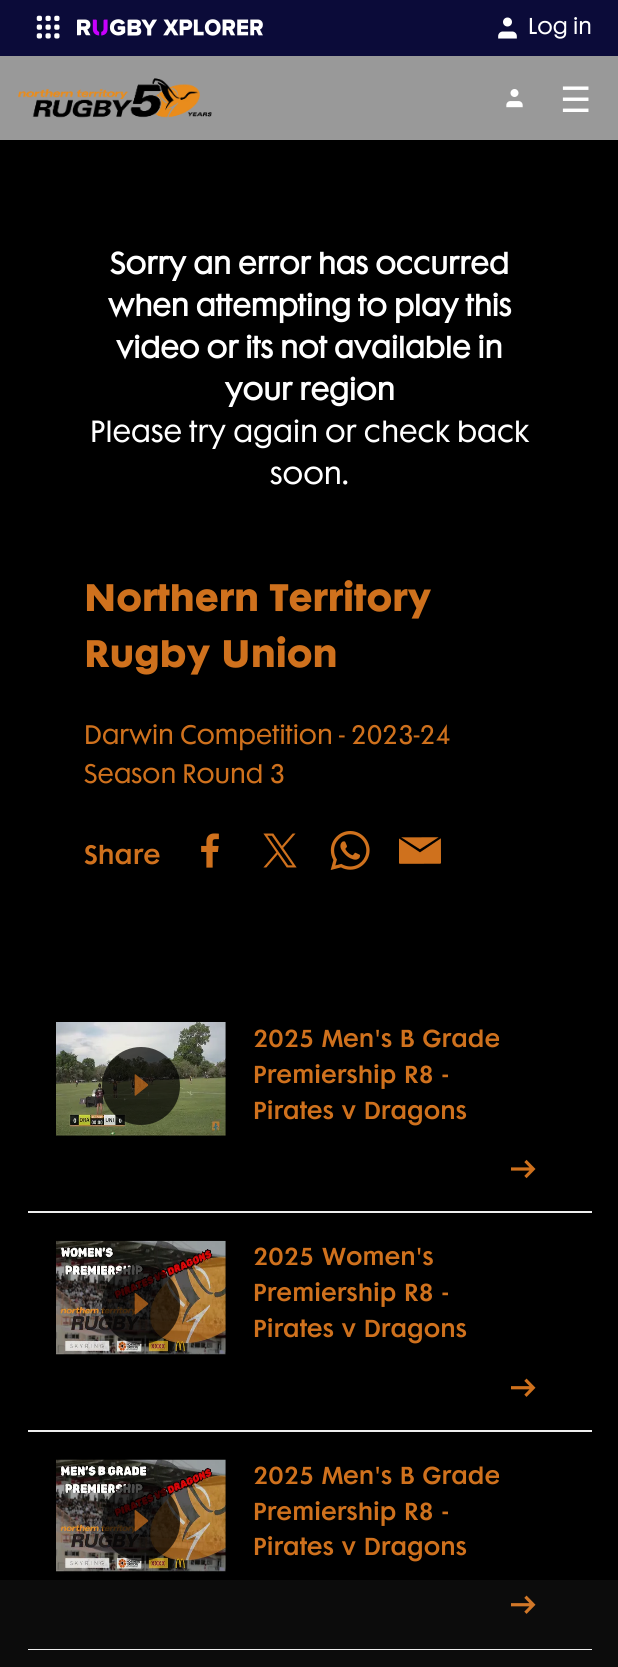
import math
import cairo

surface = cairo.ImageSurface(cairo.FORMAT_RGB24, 618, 1667)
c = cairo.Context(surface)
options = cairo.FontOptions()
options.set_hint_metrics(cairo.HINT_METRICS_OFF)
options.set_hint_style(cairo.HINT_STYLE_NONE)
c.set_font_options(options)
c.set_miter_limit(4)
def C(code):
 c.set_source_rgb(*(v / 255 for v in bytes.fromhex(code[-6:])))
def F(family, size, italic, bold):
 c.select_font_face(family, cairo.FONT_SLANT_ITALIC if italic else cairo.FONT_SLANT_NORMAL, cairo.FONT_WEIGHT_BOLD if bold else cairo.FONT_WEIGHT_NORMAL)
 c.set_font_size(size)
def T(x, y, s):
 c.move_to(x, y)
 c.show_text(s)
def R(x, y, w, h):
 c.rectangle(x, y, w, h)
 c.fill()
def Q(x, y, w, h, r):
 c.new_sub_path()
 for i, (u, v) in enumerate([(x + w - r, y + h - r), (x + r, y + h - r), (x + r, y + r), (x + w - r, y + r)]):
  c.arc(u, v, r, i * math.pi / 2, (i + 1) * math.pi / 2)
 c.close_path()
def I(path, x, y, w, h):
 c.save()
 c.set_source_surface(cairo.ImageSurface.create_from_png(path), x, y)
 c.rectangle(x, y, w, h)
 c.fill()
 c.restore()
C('000000')
c.paint()
C('0b0b39')
R(0,0,618,56)
I('1.png',36,15,24,24)
I('2.png',77,19,186,17)
I('3.png',498,17,19,22)
F('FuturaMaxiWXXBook',21,0,0)
C('ffffff')
T(528,34,'Log in')
C('999999')
R(0,56,618,84)
I('4.png',18,78,194,40)
I('5.png',506,89,17,19)
F('DejaVu Sans',35,0,0)
C('ffffff')
T(560,112,'☰')
C('0c0c0c')
R(0,1580,618,87)
F('FuturaMaxiWXXBook',28,0,1)
C('ffffff')
T(110,274,'Sorry an error has occurred')
T(108,316,'when attempting to play this')
T(116,358,'video or its not available in')
T(225,400,'your region')
F('FuturaMaxiWXXBook',28,0,0)
T(90,442,'Please try again or check back')
T(270,484,'soon.')
F('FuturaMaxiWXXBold',35,0,1)
C('cf711d')
T(84,611,'Northern Territory')
T(84,667,'Rugby Union')
F('FuturaMaxiWXXBook',24.5,0,0)
T(84,744,'Darwin Competition - 2023-24')
T(84,783,'Season Round 3')
F('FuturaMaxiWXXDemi',24.5,0,0)
T(84,864,'Share')
I('6.png',201,833,18,35)
I('7.png',263,833,34,35)
I('8.png',330,831,40,39)
I('9.png',399,837,42,27)
C('eeeeee')
R(28,1211,564,2)
I('10.png',56,1022,170,114)
c.set_source_rgba(0,0,0,0.7)
c.arc(141,1086,39,0,2 * math.pi)
c.fill()
I('11.png',134,1074,15,22)
F('FuturaMaxiWXXDemi',22.4,0,0)
C('cf711d')
T(253,1047,'2025 Men\'s B Grade')
T(253,1083,'Premiership R8 -')
T(253,1119,'Pirates v Dragons')
I('12.png',511,1159,25,20)
C('eeeeee')
R(28,1430,564,2)
I('13.png',56,1240,170,115)
c.set_source_rgba(0,0,0,0.7)
Q(102,1265,78,79,39)
c.fill()
I('14.png',134,1293,15,22)
C('cf711d')
T(253,1265,'2025 Women\'s')
T(253,1301,'Premiership R8 -')
T(253,1337,'Pirates v Dragons')
I('15.png',511,1378,25,19)
C('eeeeee')
R(28,1649,564,1)
I('16.png',56,1459,170,113)
c.set_source_rgba(0,0,0,0.7)
Q(102,1482,78,79,39)
c.fill()
I('17.png',134,1510,15,22)
C('cf711d')
T(253,1484,'2025 Men\'s B Grade')
T(253,1520,'Premiership R8 -')
T(253,1555,'Pirates v Dragons')
I('18.png',511,1595,25,19)
surface.write_to_png('o.png')
